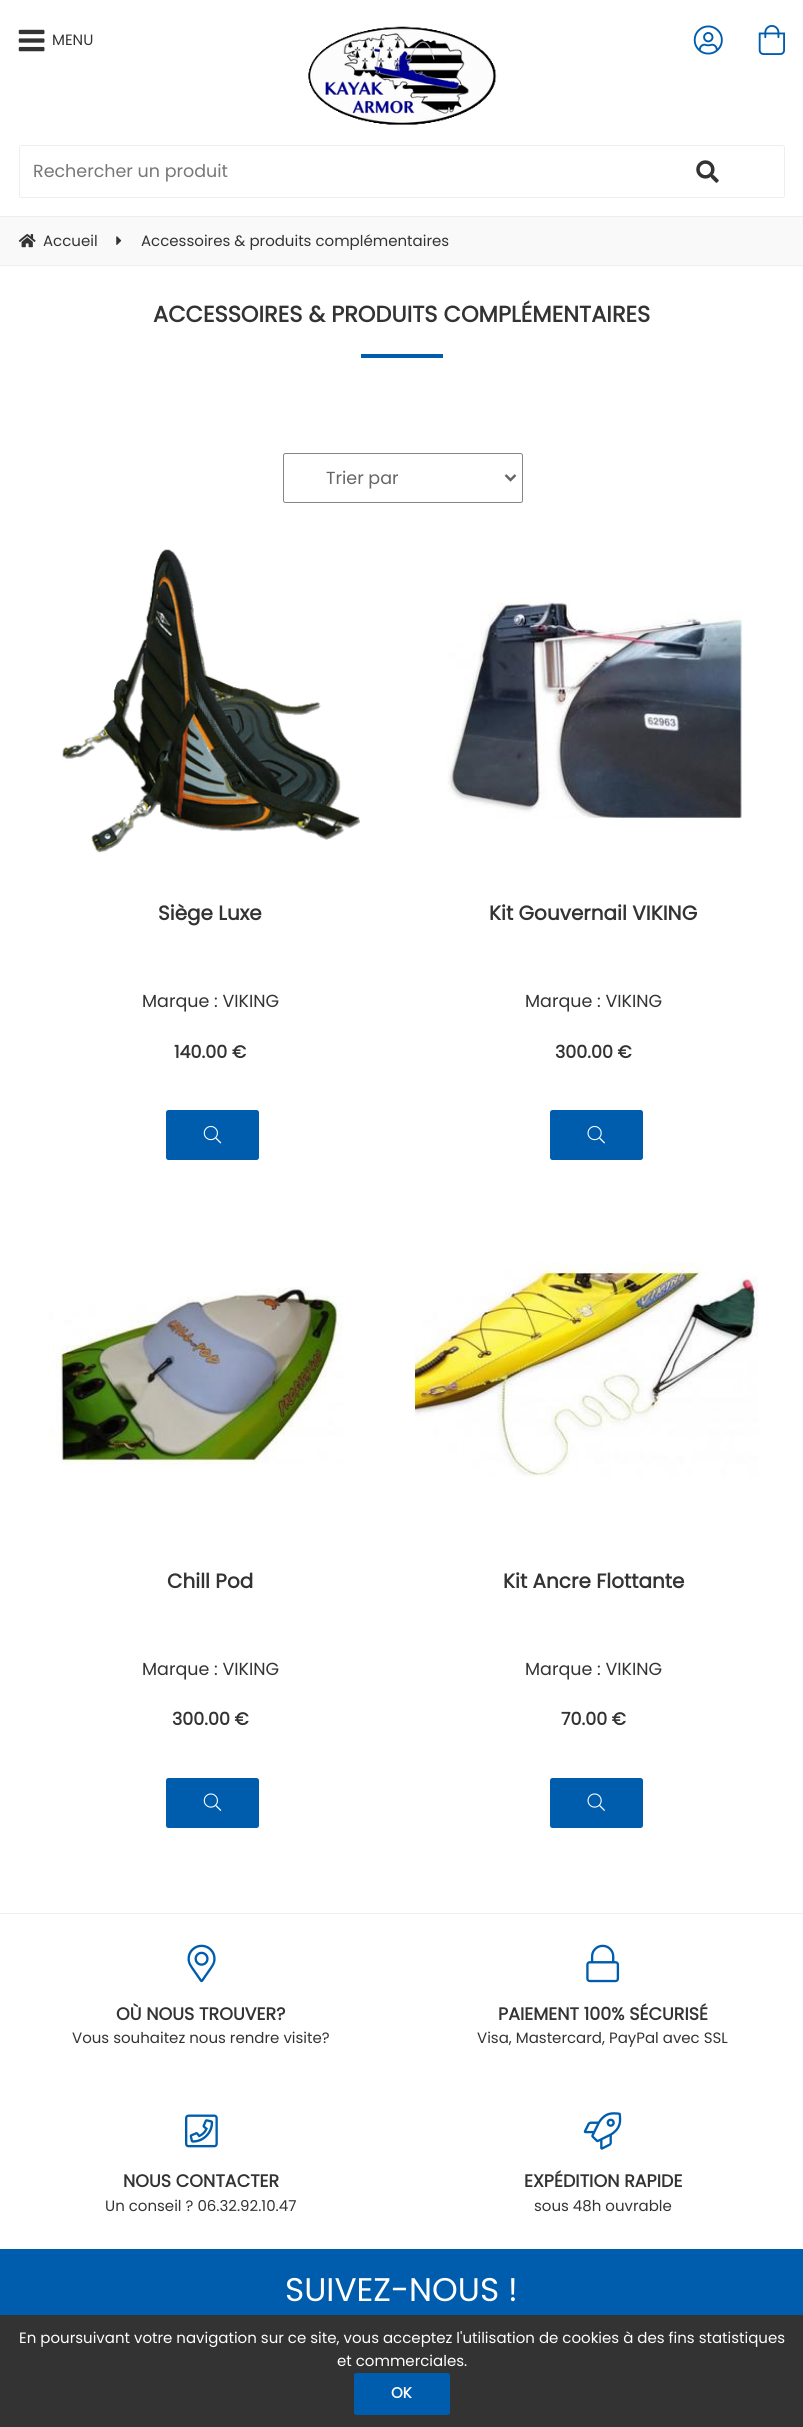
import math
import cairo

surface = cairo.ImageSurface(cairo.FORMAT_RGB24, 803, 2427)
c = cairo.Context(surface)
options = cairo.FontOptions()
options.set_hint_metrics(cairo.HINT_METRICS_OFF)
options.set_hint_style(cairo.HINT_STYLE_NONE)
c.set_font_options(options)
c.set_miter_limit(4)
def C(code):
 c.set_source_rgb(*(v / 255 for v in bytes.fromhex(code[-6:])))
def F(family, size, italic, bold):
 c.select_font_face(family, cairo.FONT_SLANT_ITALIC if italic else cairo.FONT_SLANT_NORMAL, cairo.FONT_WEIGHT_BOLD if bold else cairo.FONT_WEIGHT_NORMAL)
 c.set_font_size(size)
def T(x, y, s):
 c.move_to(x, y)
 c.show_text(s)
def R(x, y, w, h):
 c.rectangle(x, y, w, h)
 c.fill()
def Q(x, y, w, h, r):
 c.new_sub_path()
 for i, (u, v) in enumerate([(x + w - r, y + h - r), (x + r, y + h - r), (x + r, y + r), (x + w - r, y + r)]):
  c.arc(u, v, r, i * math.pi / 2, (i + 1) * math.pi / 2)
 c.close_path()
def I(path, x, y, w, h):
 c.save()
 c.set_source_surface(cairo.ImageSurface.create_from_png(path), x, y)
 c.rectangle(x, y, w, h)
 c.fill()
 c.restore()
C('ffffff')
c.paint()
I('1.png',18,29,27,23)
F('Poppins',15,0,0)
C('333333')
T(52,45,'MENU')
I('2.png',308,26,189,99)
I('3.png',693,25,30,30)
I('4.png',758,25,27,30)
Q(19.5,145.5,765,52,2)
C('eeeeee')
c.set_line_width(1)
c.stroke()
C('ffffff')
c.new_path()
c.move_to(21,146)
c.line_to(631,146)
c.line_to(631,196)
c.line_to(21,196)
c.curve_to(20.5,196,20,195.5,20,195)
c.line_to(20,147)
c.curve_to(20,146.5,20.5,146,21,146)
c.close_path()
c.fill()
F('Poppins',17.5,0,0)
C('777777')
T(33,177,'Rechercher un produit')
I('5.png',696,160,23,23)
C('f9f9f9')
R(0,217,803,48)
C('eeeeee')
R(0,216,803,1)
R(0,265,803,1)
I('6.png',18,234,18,14)
F('Poppins',15,0,0)
C('333333')
T(43,246,'Accueil')
I('7.png',116,236,6,9)
T(141,246,'Accessoires & produits complémentaires')
F('Poppins',22.5,0,1)
T(153,322,'ACCESSOIRES & PRODUITS COMPLÉMENTAIRES')
C('005dae')
R(361,354,82,4)
Q(283.5,453.5,239,49,2)
C('848484')
c.stroke()
c.new_path()
c.move_to(505.5,475)
c.line_to(510.5,480)
c.line_to(515.5,475)
C('666666')
c.set_line_width(2.5)
c.stroke()
F('Poppins',17.5,0,0)
T(326,484,'Trier par')
I('8.png',199,689,30,19)
I('9.png',62,549,298,304)
F('Poppins',20,0,1)
C('333333')
T(158,920,'Siège Luxe')
F('Poppins',17.5,0,0)
T(142,1007,'Marque : VIKING')
F('Poppins',17.5,0,1)
T(174,1058,'140.00 €')
C('005dae')
Q(166,1110,93,50,2.5)
c.fill()
I('10.png',203,1125,19,19)
I('11.png',447,599,296,219)
F('Poppins',20,0,1)
C('333333')
T(489,920,'Kit Gouvernail VIKING')
F('Poppins',17.5,0,0)
T(525,1007,'Marque : VIKING')
F('Poppins',17.5,0,1)
T(555,1058,'300.00 €')
C('005dae')
Q(550,1110,93,50,2.5)
c.fill()
I('12.png',587,1125,18,19)
I('13.png',48,1287,295,178)
F('Poppins',20,0,1)
C('333333')
T(167,1588,'Chill Pod')
F('Poppins',17.5,0,0)
T(142,1675,'Marque : VIKING')
F('Poppins',17.5,0,1)
T(172,1725,'300.00 €')
C('005dae')
Q(166,1778,93,50,2.5)
c.fill()
I('14.png',203,1793,19,18)
I('15.png',415,1262,343,215)
F('Poppins',20,0,1)
C('333333')
T(503,1588,'Kit Ancre Flottante')
F('Poppins',17.5,0,0)
T(525,1675,'Marque : VIKING')
F('Poppins',17.5,0,1)
T(561,1725,'70.00 €')
C('005dae')
Q(550,1778,93,50,2.5)
c.fill()
I('16.png',587,1793,18,18)
C('eeeeee')
R(0,1913,803,1)
I('17.png',187,1944,29,39)
C('333333')
T(116,2020,'OÙ NOUS TROUVER?')
F('Poppins',15,0,0)
T(72,2043,'Vous souhaitez nous rendre visite?')
I('18.png',586,1944,34,39)
F('Poppins',17.5,0,1)
T(498,2020,'PAIEMENT 100% SÉCURISÉ')
F('Poppins',15,0,0)
T(477,2043,'Visa, Mastercard, PayPal avec SSL')
I('19.png',185,2114,33,34)
F('Poppins',17.5,0,1)
T(123,2187,'NOUS CONTACTER')
F('Poppins',15,0,0)
T(105,2211,'Un conseil ? 06.32.92.10.47')
I('20.png',583,2112,39,38)
F('Poppins',17.5,0,1)
T(524,2187,'EXPÉDITION RAPIDE')
F('Poppins',15,0,0)
T(534,2211,'sous 48h ouvrable')
C('005dae')
R(0,2249,803,66)
F('Poppins',32.75,0,0)
C('ffffff')
T(285,2301,'SUIVEZ-NOUS !')
C('333333')
R(0,2315,803,112)
F('Poppins',15,0,0)
C('ffffff')
T(19,2343,'En poursuivant votre navigation sur ce site, vous acceptez l\'utilisation de cookies à des fins statistiques')
T(337,2366,'et commerciales.')
C('005dae')
Q(354,2373,96,42,2.5)
c.fill()
F('Poppins',15,0,1)
C('ffffff')
T(391,2398,'OK')
surface.write_to_png('o.png')
